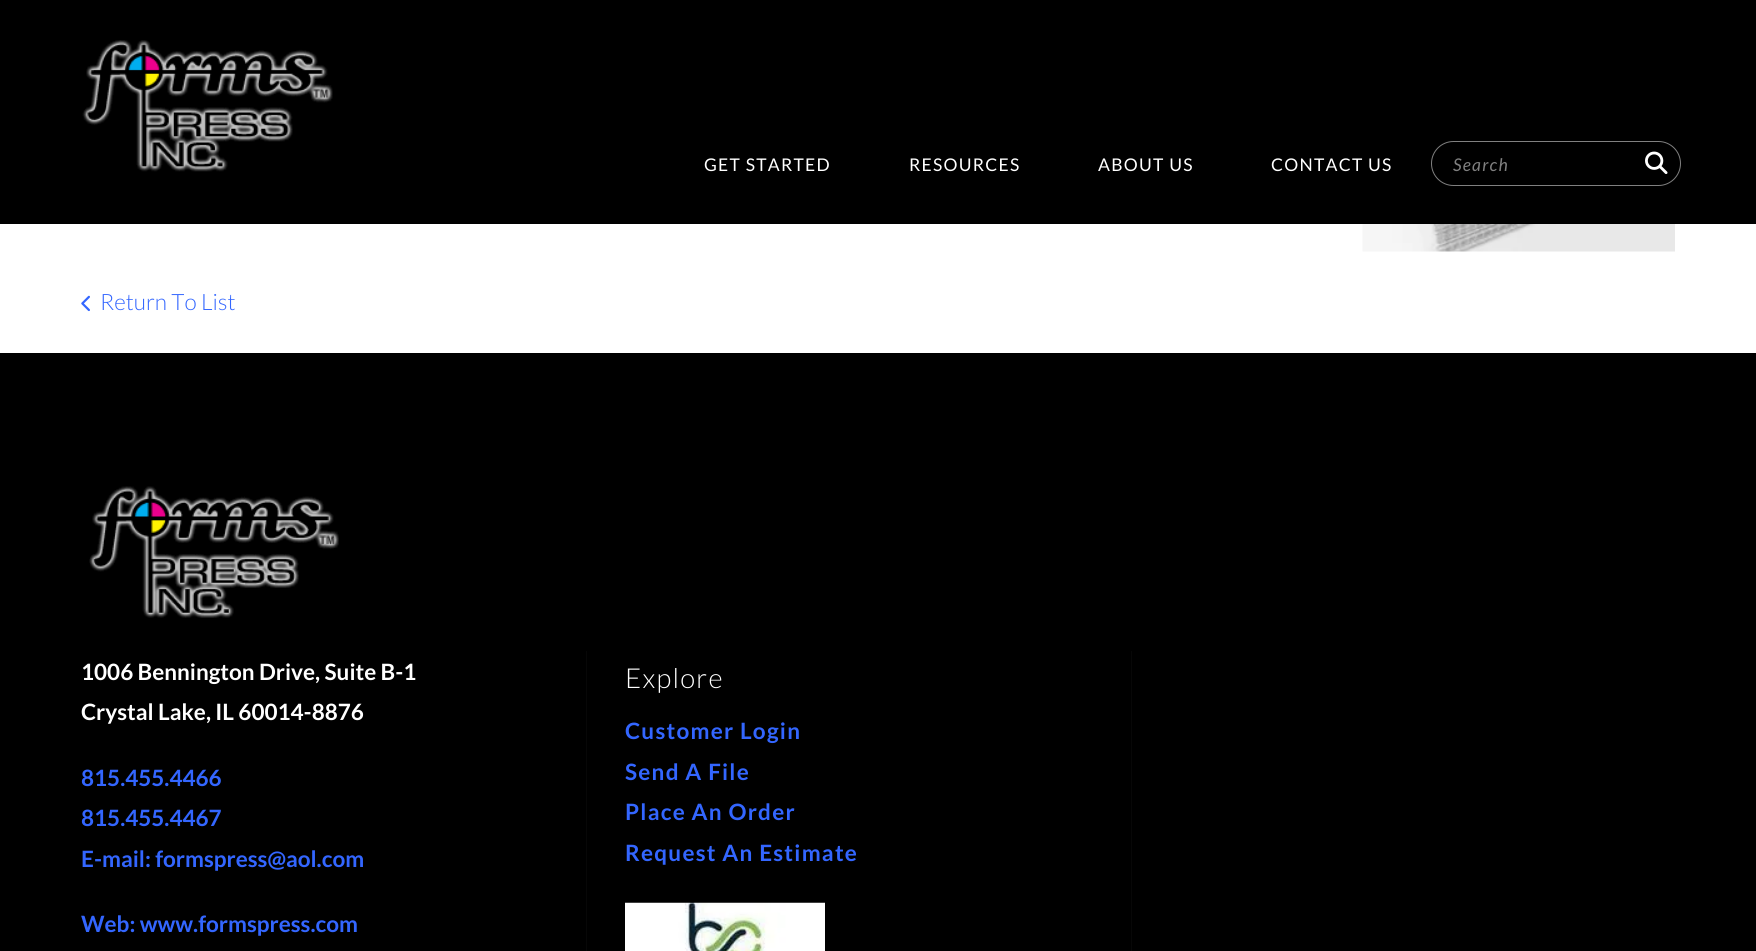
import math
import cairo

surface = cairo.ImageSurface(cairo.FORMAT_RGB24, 1756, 951)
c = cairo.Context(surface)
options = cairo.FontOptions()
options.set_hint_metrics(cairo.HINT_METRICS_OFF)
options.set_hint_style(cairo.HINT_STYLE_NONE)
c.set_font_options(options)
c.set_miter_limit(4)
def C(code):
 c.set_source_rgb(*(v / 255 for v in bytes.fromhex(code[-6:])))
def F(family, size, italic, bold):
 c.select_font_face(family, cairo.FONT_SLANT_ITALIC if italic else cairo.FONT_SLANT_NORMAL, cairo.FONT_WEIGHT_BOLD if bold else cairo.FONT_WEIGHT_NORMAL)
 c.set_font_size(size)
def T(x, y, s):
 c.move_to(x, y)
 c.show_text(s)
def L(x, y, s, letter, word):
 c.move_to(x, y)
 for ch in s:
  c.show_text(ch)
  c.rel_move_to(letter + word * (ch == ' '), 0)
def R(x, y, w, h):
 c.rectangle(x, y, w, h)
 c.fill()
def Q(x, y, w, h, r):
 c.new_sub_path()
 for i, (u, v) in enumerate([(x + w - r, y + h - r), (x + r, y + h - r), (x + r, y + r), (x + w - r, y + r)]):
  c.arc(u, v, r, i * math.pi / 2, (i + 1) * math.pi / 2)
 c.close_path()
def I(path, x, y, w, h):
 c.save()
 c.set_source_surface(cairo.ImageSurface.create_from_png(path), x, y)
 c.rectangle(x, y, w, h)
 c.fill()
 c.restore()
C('ffffff')
c.paint()
C('000000')
R(0,0,1756,224)
I('1.png',82,40,251,132)
F('Lato',17.5,0,0)
C('ffffff')
L(704,171,'GET STARTED',1.25,0)
L(909,171,'RESOURCES',1.25,0)
L(1098,171,'ABOUT US',1.25,0)
L(1271,171,'CONTACT US',1.25,0)
Q(1431.5,141.5,249,44,22)
C('808080')
c.set_line_width(1)
c.stroke()
F('Lato',17.5,1,0)
L(1453,171,'Search',1.25,0)
I('2.png',1645,151,23,23)
I('3.png',1362,224,313,28)
I('4.png',81,295,9,17)
F('Lato Light',22.5,0,0)
C('3366ff')
T(100,310,'Return To List')
C('000000')
R(0,353,1756,598)
I('5.png',89,486,250,132)
F('Lato',22.5,0,1)
C('ffffff')
T(81,680,'1006 Bennington Drive, Suite B-1')
T(81,720,'Crystal Lake, IL 60014-8876')
C('3366ff')
T(81,786,'815.455.4466')
T(81,826,'815.455.4467')
T(81,867,'E-mail: formspress@aol.com')
T(81,932,'Web: www.formspress.com')
C('070707')
R(586,651,1,300)
F('Lato Light',27.5,0,0)
C('ffffff')
L(625,688,'Explore',1.25,0)
F('Lato',22.5,0,1)
C('3366ff')
L(625,739,'Customer Login',1.25,0)
L(625,780,'Send A File',1.25,0)
L(625,820,'Place An Order',1.25,0)
L(625,861,'Request An Estimate',1.25,0)
I('6.png',625,902,200,49)
C('070707')
R(1131,651,1,300)
surface.write_to_png('o.png')
